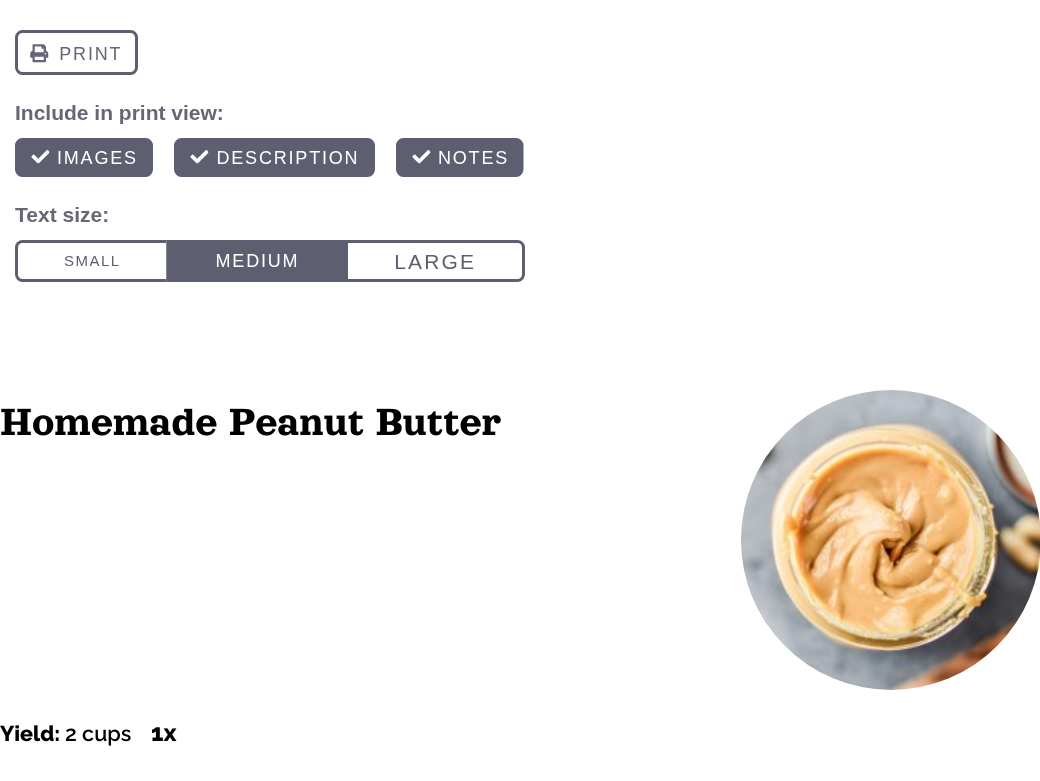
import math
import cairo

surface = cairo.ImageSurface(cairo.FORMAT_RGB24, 1040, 781)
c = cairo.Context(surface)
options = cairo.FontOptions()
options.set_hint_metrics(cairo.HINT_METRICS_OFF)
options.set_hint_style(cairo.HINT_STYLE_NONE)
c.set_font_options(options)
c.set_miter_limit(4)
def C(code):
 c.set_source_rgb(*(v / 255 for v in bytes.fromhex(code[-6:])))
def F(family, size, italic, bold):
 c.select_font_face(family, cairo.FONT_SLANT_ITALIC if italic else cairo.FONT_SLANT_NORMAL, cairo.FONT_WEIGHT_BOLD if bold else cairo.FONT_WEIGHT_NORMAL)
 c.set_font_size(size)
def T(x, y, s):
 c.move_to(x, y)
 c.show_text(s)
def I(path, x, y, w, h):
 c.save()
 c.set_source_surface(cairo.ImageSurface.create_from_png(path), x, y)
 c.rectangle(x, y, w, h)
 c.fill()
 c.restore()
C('ffffff')
c.paint()
I('1.png',15,30,510,252)
F('Orelega One',43.25,0,0)
C('000000')
T(0,435,'Homemade Peanut Butter')
I('2.png',741,390,299,300)
F('Raleway Thin',21.5,0,0)
T(0,741,'Yield:')
F('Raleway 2 Thin',21.5,0,0)
T(65,741,'2 cups')
F('Raleway Thin',24,0,0)
T(151,741,'1x')
surface.write_to_png('o.png')
